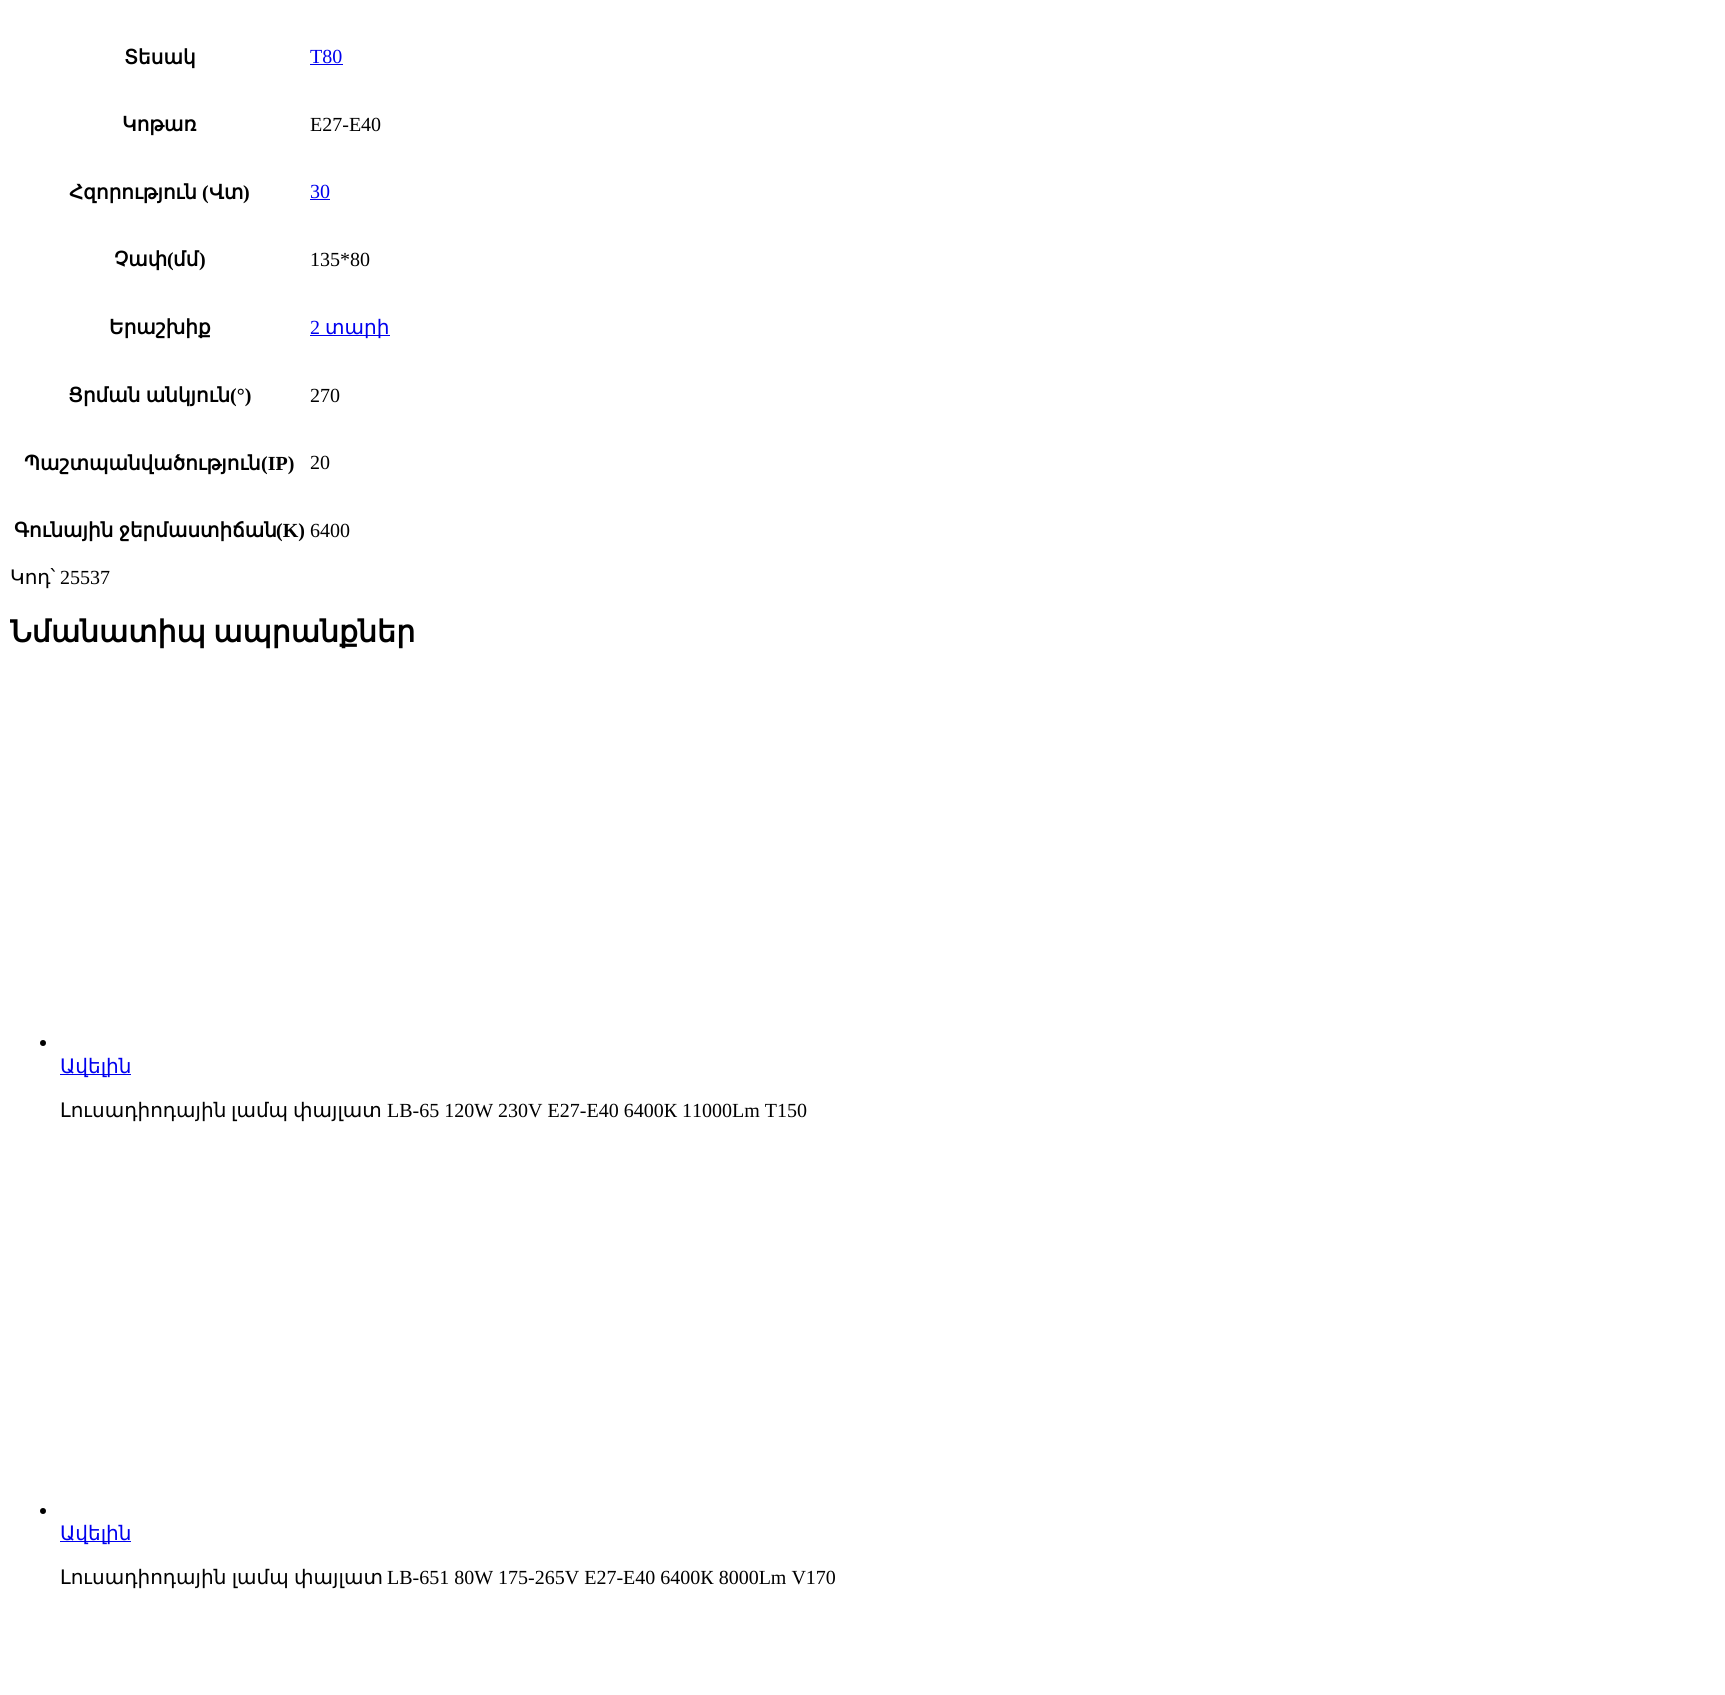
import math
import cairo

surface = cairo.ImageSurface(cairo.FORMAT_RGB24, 1725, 1695)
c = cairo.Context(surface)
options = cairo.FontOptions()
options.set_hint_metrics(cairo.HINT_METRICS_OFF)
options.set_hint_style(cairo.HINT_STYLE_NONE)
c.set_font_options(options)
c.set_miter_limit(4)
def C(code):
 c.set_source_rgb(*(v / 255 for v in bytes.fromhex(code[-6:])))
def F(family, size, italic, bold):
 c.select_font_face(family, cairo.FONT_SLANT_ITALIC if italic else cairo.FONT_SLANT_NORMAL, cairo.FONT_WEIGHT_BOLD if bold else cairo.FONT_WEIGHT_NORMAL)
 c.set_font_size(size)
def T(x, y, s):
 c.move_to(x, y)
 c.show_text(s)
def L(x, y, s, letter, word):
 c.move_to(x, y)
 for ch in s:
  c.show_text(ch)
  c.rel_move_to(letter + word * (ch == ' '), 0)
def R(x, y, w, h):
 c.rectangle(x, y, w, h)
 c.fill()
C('ffffff')
c.paint()
F('DejaVu Sans',20,0,1)
C('000000')
T(124,64,'Տեսակ')
F('Liberation Serif',20,0,0)
C('0000ee')
T(310,63,'T80')
R(310,64,33,1)
F('DejaVu Sans',20,0,1)
C('000000')
T(122,131,'Կոթառ')
F('Liberation Serif',20,0,0)
T(310,131,'E27-Е40')
F('DejaVu Sans',20,0,1)
T(69,199,'Հզորություն')
F('Liberation Serif',20,0,1)
T(202,199,'(')
F('DejaVu Sans',20,0,1)
T(209,199,'Վտ')
F('Liberation Serif',20,0,1)
T(243,199,')')
F('Liberation Serif',20,0,0)
C('0000ee')
T(310,198,'30')
R(310,199,20,1)
F('DejaVu Sans',20,0,1)
C('000000')
T(114,266,'Չափ')
F('Liberation Serif',20,0,1)
T(167,266,'(')
F('DejaVu Sans',20,0,1)
T(173,266,'մմ')
F('Liberation Serif',20,0,1)
T(199,266,')')
F('Liberation Serif',20,0,0)
T(310,266,'135*80')
F('DejaVu Sans',20,0,1)
T(109,334,'Երաշխիք')
F('Liberation Serif',20,0,0)
C('0000ee')
T(310,334,'2')
R(310,335,80,1)
F('DejaVu Sans',20,0,0)
T(325,334,'տարի')
F('DejaVu Sans',20,0,1)
C('000000')
L(68,402,'Ցրման անկյուն',0,-1)
F('Liberation Serif',20,0,1)
T(230,402,'(°)')
F('Liberation Serif',20,0,0)
T(310,402,'270')
F('DejaVu Sans',20,0,1)
T(24,470,'Պաշտպանվածություն')
F('Liberation Serif',20,0,1)
T(261,470,'(IP)')
F('Liberation Serif',20,0,0)
T(310,469,'20')
F('DejaVu Sans',20,0,1)
L(14,537,'Գունային ջերմաստիճան',0,-1)
F('Liberation Serif',20,0,1)
T(276,537,'(K)')
F('Liberation Serif',20,0,0)
T(310,537,'6400')
F('DejaVu Sans',20,0,0)
T(10,584,'Կոդ՝')
F('Liberation Serif',20,0,0)
T(60,584,'25537')
F('DejaVu Sans',30,0,1)
L(10,642,'Նմանատիպ ապրանքներ',0,-2)
c.new_path()
c.arc(43,1043,3,0,2 * math.pi)
c.fill()
C('0000ee')
R(60,1074,71,1)
F('DejaVu Sans',20,0,0)
T(60,1073,'Ավելին')
C('000000')
T(60,1117,'Լուսադիոդային')
T(231,1117,'լամպ')
T(293,1117,'փայլատ')
F('Liberation Serif',20,0,0)
T(387,1117,'LB-65 120W 230V E27-E40 6400К 11000Lm T150')
c.new_path()
c.arc(43,1511,3,0,2 * math.pi)
c.fill()
C('0000ee')
R(60,1541,71,1)
F('DejaVu Sans',20,0,0)
T(60,1540,'Ավելին')
C('000000')
L(60,1584,'Լուսադիոդային լամպ փայլատ',0,-1)
F('Liberation Serif',20,0,0)
T(387,1584,'LB-651 80W 175-265V E27-E40 6400К 8000Lm V170')
surface.write_to_png('o.png')
